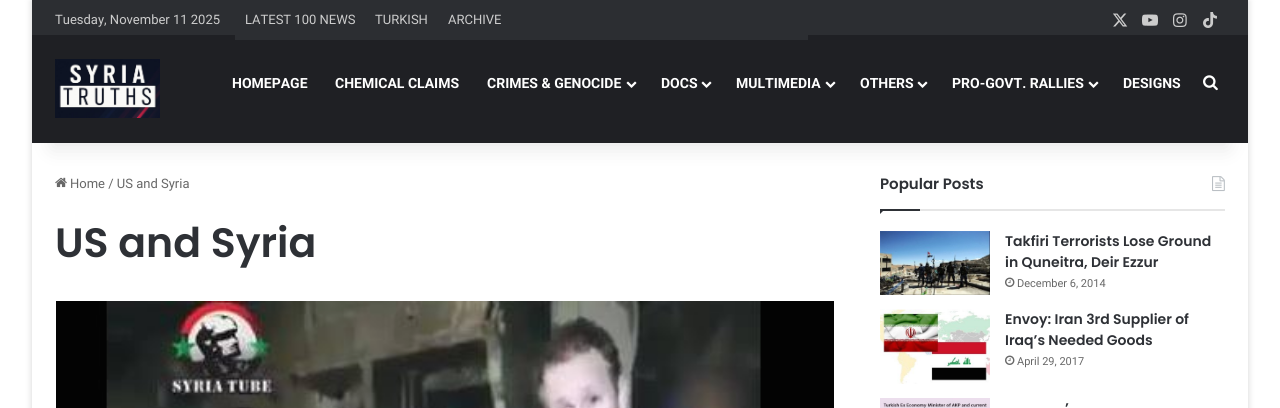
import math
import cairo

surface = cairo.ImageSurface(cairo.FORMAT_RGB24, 1280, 408)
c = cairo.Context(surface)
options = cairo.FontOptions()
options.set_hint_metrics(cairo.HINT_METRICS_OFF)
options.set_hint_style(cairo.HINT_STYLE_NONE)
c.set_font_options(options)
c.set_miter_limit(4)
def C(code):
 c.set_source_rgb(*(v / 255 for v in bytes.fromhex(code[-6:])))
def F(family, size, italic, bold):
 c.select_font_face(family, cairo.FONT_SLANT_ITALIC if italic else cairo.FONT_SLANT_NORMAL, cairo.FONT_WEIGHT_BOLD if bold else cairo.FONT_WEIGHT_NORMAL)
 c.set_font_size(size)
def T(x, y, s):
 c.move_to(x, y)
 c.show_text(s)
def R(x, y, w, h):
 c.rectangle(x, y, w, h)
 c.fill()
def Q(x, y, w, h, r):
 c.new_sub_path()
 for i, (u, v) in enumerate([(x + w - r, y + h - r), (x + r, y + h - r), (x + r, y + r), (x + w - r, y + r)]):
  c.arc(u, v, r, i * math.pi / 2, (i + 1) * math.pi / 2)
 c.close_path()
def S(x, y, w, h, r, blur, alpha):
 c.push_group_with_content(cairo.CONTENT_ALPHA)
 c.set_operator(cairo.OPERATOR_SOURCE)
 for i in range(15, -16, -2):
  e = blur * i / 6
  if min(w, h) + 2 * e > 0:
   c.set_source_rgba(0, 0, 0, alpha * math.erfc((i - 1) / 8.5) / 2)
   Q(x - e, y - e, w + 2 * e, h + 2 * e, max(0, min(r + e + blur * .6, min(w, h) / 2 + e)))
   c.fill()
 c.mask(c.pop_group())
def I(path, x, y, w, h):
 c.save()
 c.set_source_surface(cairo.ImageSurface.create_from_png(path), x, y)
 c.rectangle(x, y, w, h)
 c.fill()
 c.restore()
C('ffffff')
c.paint()
c.save()
c.set_fill_rule(cairo.FILL_RULE_EVEN_ODD)
c.new_path()
c.move_to(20,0)
c.line_to(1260,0)
c.line_to(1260,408)
c.line_to(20,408)
c.close_path()
c.move_to(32,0)
c.line_to(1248,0)
c.line_to(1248,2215)
c.line_to(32,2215)
c.close_path()
c.clip()
C('ababab')
S(32,1,1216,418,0,3.5,.5)
c.restore()
I('8.png',55,177,12,11)
I('10.png',1212,176,13,16)
C('000000')
S(52,45,1176,103,0,10,.1)
C('2c2e32')
R(32,0,1216,35)
F('Roboto',13,0,0)
C('cccccc')
T(55,24,'Tuesday, November 11 2025')
C('1f2024')
R(32,35,1216,108)
C('2c2e32')
R(235,35,573,5)
C('cccccc')
T(245,24,'LATEST 100 NEWS')
T(375,24,'TURKISH')
T(448,24,'ARCHIVE')
I('1.png',1113,13,15,14)
I('2.png',1142,14,16,12)
I('3.png',1173,13,14,14)
I('4.png',1203,12,14,16)
I('5.png',55,59,105,59)
F('Roboto',14,0,1)
C('ffffff')
T(232,88,'HOMEPAGE')
T(335,88,'CHEMICAL CLAIMS')
T(487,88,'CRIMES & GENOCIDE')
I('6.png',626,81,11,7)
T(661,88,'DOCS')
I('6.png',701,81,11,7)
T(736,88,'MULTIMEDIA')
I('6.png',825,81,11,7)
T(860,88,'OTHERS')
I('6.png',917,81,11,7)
T(952,88,'PRO-GOVT. RALLIES')
I('6.png',1088,81,11,7)
T(1123,88,'DESIGNS')
I('7.png',1203,75,15,16)
F('Roboto',13,0,0)
C('686868')
T(70,188,'Home / US and Syria')
F('Poppins SemiBold',41,0,0)
C('2e3136')
T(55,257,'US and Syria')
I('9.png',56,301,778,107)
C('e6e6e6')
R(920,209,305,2)
F('Poppins SemiBold',15,0,0)
C('2e3136')
T(880,189,'Popular Posts')
c.new_path()
c.move_to(880,209)
c.line_to(885,209)
c.line_to(880,214)
c.close_path()
c.fill()
R(880,209,40,2)
I('11.png',880,231,110,64)
F('Poppins SemiBold',14,0,0)
T(1005,246,'Takfiri Terrorists Lose Ground')
T(1005,267,'in Quneitra, Deir Ezzur')
I('12.png',1005,277,10,10)
F('Roboto',11,0,0)
C('686868')
T(1017,287,'December 6, 2014')
I('13.png',880,309,110,75)
F('Poppins SemiBold',14,0,0)
C('2e3136')
T(1005,324,'Envoy: Iran 3rd Supplier of')
T(1005,345,'Iraq’s Needed Goods')
I('12.png',1005,355,10,10)
F('Roboto',11,0,0)
C('686868')
T(1017,365,'April 29, 2017')
I('14.png',880,398,110,10)
F('Poppins SemiBold',14,0,0)
C('2e3136')
T(1065,413,'’')
surface.write_to_png('o.png')
